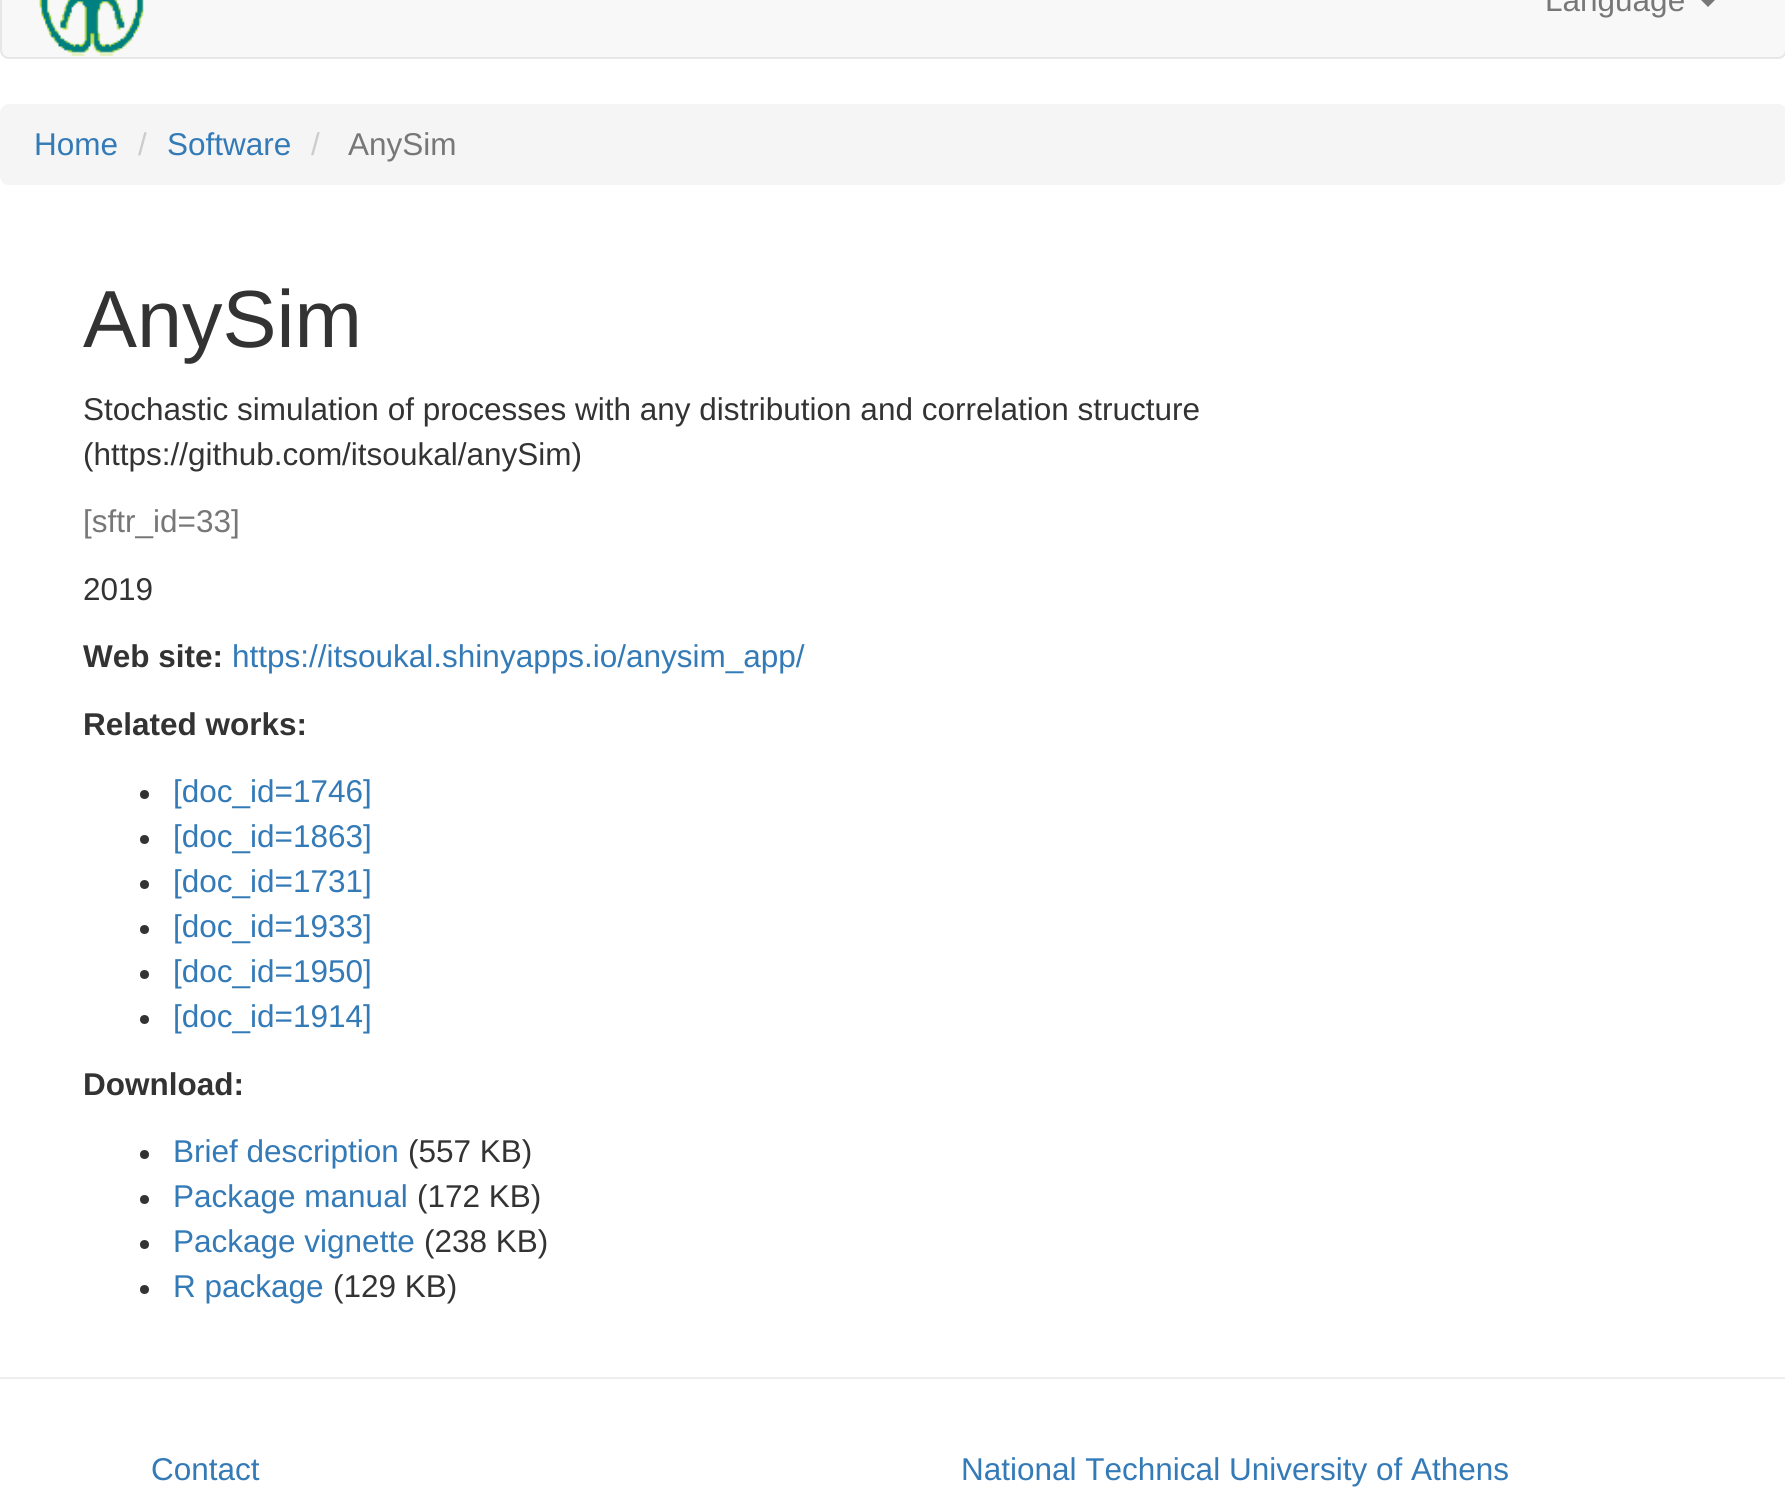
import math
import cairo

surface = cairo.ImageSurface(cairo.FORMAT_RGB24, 1785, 1501)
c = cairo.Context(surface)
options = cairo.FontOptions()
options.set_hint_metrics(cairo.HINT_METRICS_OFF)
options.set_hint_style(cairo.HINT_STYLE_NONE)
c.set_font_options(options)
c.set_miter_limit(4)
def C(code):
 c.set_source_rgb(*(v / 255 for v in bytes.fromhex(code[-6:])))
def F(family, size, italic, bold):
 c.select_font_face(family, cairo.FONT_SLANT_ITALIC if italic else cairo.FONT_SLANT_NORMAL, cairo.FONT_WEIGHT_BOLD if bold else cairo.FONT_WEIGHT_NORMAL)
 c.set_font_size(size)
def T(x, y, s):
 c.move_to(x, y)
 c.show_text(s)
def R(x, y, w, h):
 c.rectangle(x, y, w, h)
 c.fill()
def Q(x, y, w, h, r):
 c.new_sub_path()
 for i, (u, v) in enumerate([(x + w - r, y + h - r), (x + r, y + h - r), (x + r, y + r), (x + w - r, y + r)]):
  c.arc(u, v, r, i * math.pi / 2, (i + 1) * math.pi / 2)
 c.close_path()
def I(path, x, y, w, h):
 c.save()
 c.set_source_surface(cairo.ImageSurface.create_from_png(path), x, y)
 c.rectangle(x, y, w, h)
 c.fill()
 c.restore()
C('ffffff')
c.paint()
C('f8f8f8')
Q(1,-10,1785,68,8)
c.fill_preserve()
C('e7e7e7')
c.stroke()
I('1.png',39,0,105,56)
F('Liberation Sans',31.5,0,0)
C('777777')
T(1545,11,'Language')
c.new_path()
c.move_to(1699,-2)
c.line_to(1717,-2)
c.line_to(1708,7)
c.close_path()
c.fill()
C('f5f5f5')
Q(0,104,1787,81,9)
c.fill()
C('337ab7')
T(34,155,'Home')
C('cccccc')
T(138,155,'/')
C('337ab7')
T(167,155,'Software')
C('cccccc')
T(311,155,'/')
C('777777')
T(348,155,'AnySim')
F('Liberation Sans',81,0,0)
C('333333')
T(83,347,'AnySim')
F('Liberation Sans',31.5,0,0)
T(83,420,'Stochastic simulation of processes with any distribution and correlation structure')
T(83,465,'(https://github.com/itsoukal/anySim)')
C('777777')
T(83,532,'[sftr_id=33]')
C('333333')
T(83,600,'2019')
F('Liberation Sans',31.5,0,1)
T(83,667,'Web site:')
F('Liberation Sans',31.5,0,0)
C('337ab7')
T(232,667,'https://itsoukal.shinyapps.io/anysim_app/')
F('Liberation Sans',31.5,0,1)
C('333333')
T(83,735,'Related works:')
c.new_path()
c.arc(144.5,794.5,4.5,0,2 * math.pi)
c.fill()
F('Liberation Sans',31.5,0,0)
C('337ab7')
T(173,802,'[doc_id=1746]')
C('333333')
c.new_path()
c.arc(144.5,839.5,4.5,0,2 * math.pi)
c.fill()
C('337ab7')
T(173,847,'[doc_id=1863]')
C('333333')
c.new_path()
c.arc(144.5,884.5,4.5,0,2 * math.pi)
c.fill()
C('337ab7')
T(173,892,'[doc_id=1731]')
C('333333')
c.new_path()
c.arc(144.5,929.5,4.5,0,2 * math.pi)
c.fill()
C('337ab7')
T(173,937,'[doc_id=1933]')
C('333333')
c.new_path()
c.arc(144.5,974.5,4.5,0,2 * math.pi)
c.fill()
C('337ab7')
T(173,982,'[doc_id=1950]')
C('333333')
c.new_path()
c.arc(144.5,1019.5,4.5,0,2 * math.pi)
c.fill()
C('337ab7')
T(173,1027,'[doc_id=1914]')
F('Liberation Sans',31.5,0,1)
C('333333')
T(83,1095,'Download:')
c.new_path()
c.arc(144.5,1154.5,4.5,0,2 * math.pi)
c.fill()
F('Liberation Sans',31.5,0,0)
C('337ab7')
T(173,1162,'Brief description')
C('333333')
T(408,1162,'(557 KB)')
c.new_path()
c.arc(144.5,1199.5,4.5,0,2 * math.pi)
c.fill()
C('337ab7')
T(173,1207,'Package manual')
C('333333')
T(417,1207,'(172 KB)')
c.new_path()
c.arc(144.5,1244.5,4.5,0,2 * math.pi)
c.fill()
C('337ab7')
T(173,1252,'Package vignette')
C('333333')
T(424,1252,'(238 KB)')
c.new_path()
c.arc(144.5,1289.5,4.5,0,2 * math.pi)
c.fill()
C('337ab7')
T(173,1297,'R package')
C('333333')
T(333,1297,'(129 KB)')
C('eeeeee')
R(0,1377,1785,2)
C('337ab7')
T(151,1480,'Contact')
T(961,1480,'National Technical University of Athens')
surface.write_to_png('o.png')
